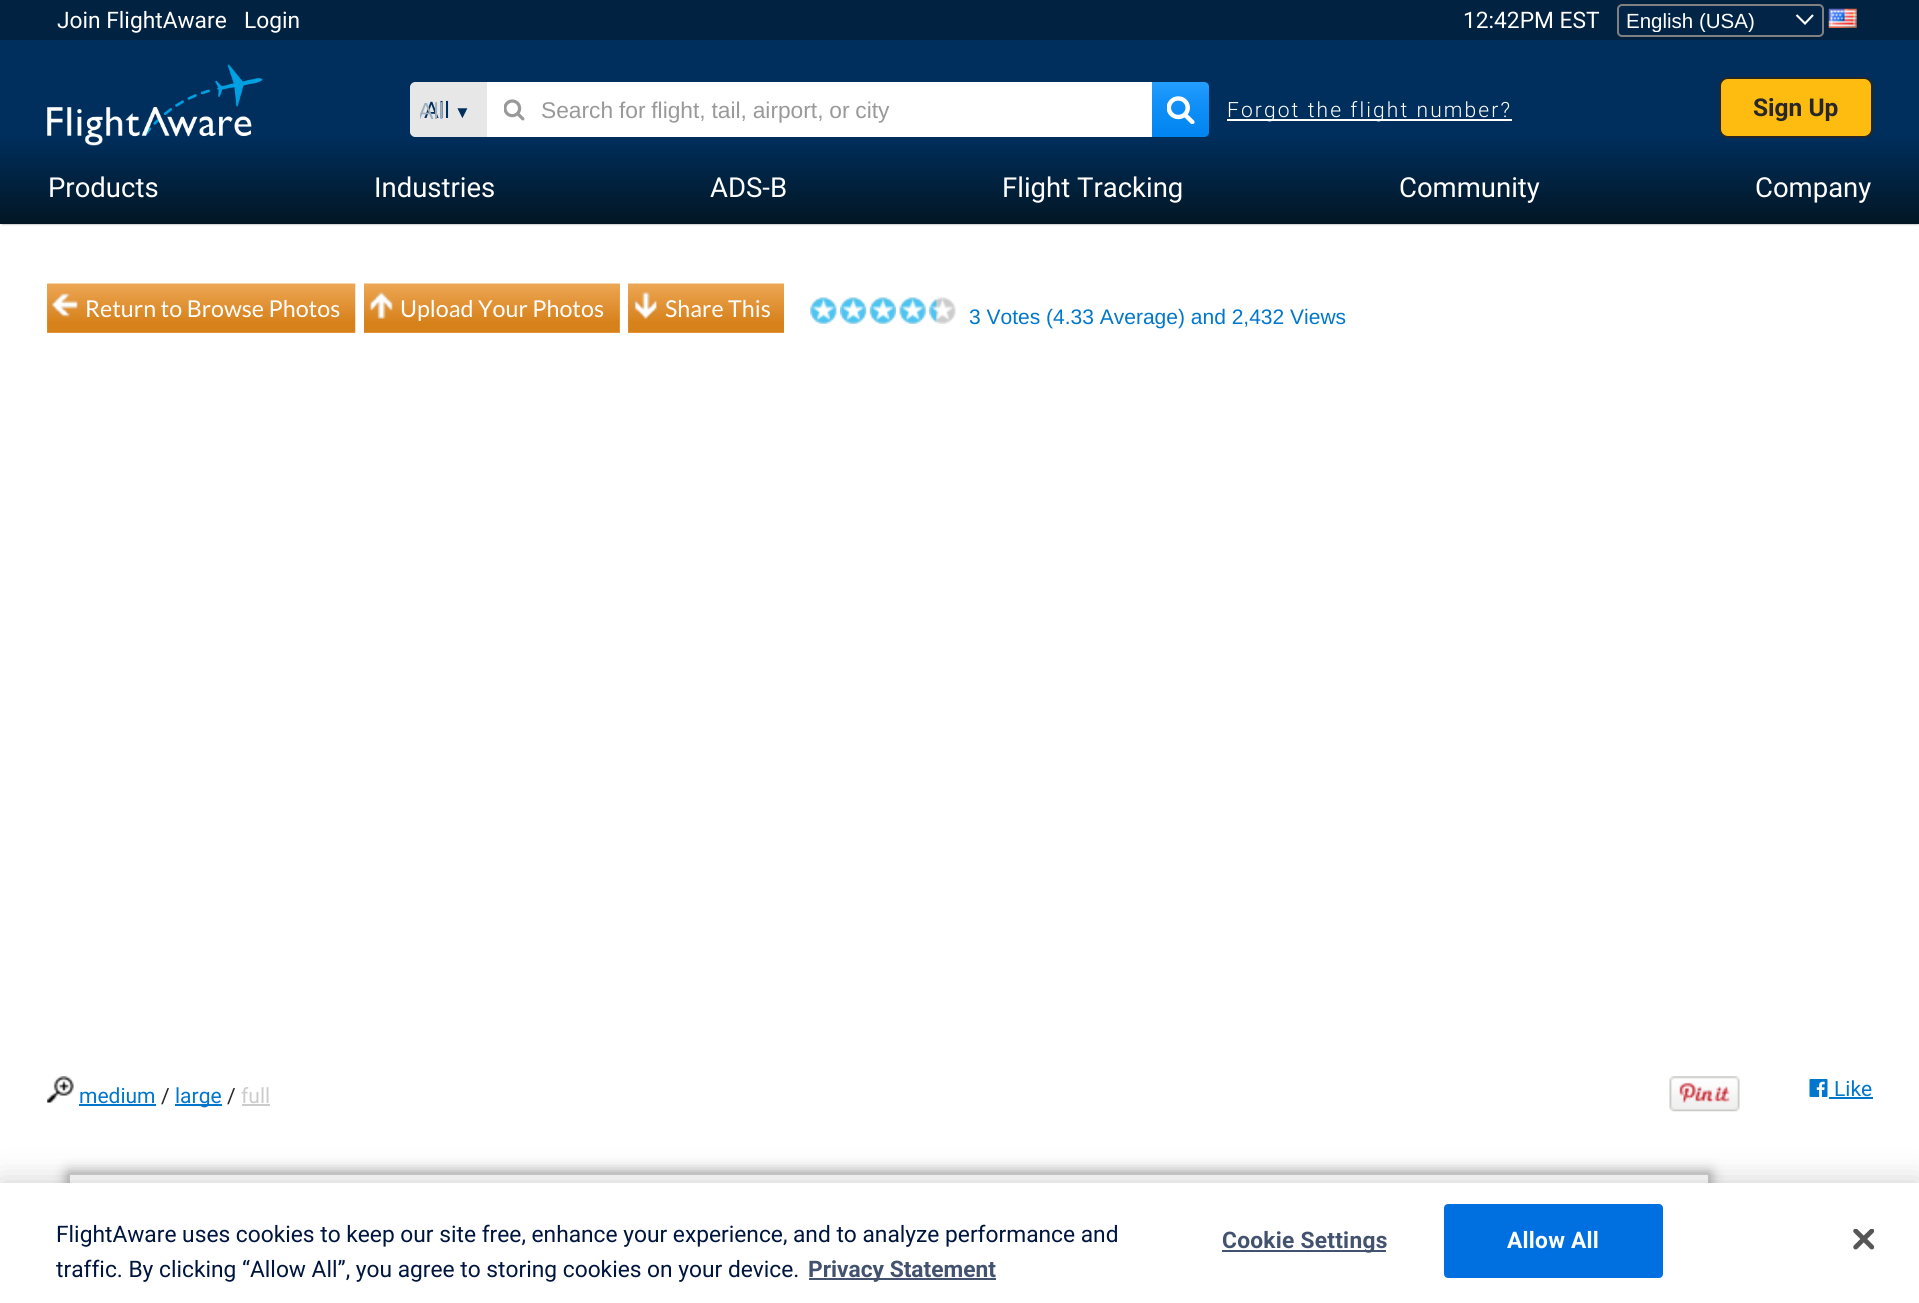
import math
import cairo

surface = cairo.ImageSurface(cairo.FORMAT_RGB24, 1919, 1303)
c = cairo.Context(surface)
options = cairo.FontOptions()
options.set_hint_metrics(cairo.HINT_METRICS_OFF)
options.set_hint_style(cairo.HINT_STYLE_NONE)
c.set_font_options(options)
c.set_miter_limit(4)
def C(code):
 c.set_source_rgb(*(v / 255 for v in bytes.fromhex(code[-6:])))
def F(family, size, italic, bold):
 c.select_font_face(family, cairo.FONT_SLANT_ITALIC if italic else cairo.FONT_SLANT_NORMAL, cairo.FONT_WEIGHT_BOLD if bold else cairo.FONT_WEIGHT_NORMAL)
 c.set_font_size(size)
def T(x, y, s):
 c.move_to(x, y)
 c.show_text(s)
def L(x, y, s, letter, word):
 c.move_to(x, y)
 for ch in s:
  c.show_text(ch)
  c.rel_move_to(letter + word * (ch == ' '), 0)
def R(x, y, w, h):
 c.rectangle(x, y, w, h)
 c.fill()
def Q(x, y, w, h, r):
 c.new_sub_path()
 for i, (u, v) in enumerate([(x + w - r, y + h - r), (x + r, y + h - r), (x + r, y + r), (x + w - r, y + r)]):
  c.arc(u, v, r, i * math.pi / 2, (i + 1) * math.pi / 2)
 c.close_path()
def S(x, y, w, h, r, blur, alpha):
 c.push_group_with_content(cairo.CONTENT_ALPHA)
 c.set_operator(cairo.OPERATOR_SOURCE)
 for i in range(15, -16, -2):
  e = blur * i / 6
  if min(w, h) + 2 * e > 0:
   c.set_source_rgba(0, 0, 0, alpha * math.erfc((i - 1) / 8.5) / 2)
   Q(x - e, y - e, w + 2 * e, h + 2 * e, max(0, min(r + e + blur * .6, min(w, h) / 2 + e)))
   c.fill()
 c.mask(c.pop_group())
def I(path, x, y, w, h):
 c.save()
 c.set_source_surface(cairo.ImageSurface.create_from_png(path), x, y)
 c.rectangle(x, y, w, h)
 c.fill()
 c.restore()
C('ffffff')
c.paint()
C('888888')
S(2,4,1916,220,0,1,1)
gradient = cairo.LinearGradient(960,0,960,224)
gradient.add_color_stop_rgba(0,0,0.184,0.365,1)
gradient.add_color_stop_rgba(.6,0,0.184,0.365,1)
gradient.add_color_stop_rgba(1,0.008,0.086,0.141,1)
c.set_source(gradient)
R(0,40,1919,184)
C('022241')
R(0,0,1919,40)
F('Roboto',22.75,0,0)
C('ffffff')
T(57,28,'Join FlightAware')
T(244,28,'Login')
T(1463,28,'12:42PM EST')
C('022547')
Q(1617,4,207,33,5)
c.fill()
c.new_path()
c.move_to(1796.5,15)
c.line_to(1805,23.5)
c.line_to(1813,15)
C('ffffff')
c.set_line_width(2.1)
c.stroke()
Q(1618,5,205,31,4)
C('808080')
c.set_line_width(2)
c.stroke()
c.save()
c.rectangle(1626,9,189,23)
c.clip()
F('Liberation Sans',20.5,0,0)
C('ffffff')
T(1626,28,'English (USA)')
c.restore()
I('1.png',1828,8,29,20)
I('2.png',47,64,216,82)
C('e7e7e7')
c.new_path()
c.move_to(415,83)
c.line_to(486,83)
c.line_to(486,136)
c.line_to(415,136)
c.curve_to(413,136,411,134,411,132)
c.line_to(411,87)
c.curve_to(411,85,413,83,415,83)
c.close_path()
c.fill_preserve()
c.stroke()
C('002f5d')
T(424,118,'All')
F('Liberation Sans',17,0,0)
T(454,118,'▼')
c.save()
c.rectangle(420,96,201,30)
c.clip()
F('Liberation Sans',23.25,0,0)
C('9faebc')
T(418,119,'All')
c.restore()
C('ffffff')
R(487,82,665,55)
I('3.png',504,99,21,22)
F('Liberation Sans',22.75,0,0)
C('999999')
L(541,118,'Search for flight, tail, airport, or city',0,-.5)
gradient = cairo.LinearGradient(1180,137,1180,82)
gradient.add_color_stop_rgba(0,0,0.518,0.941,1)
gradient.add_color_stop_rgba(.66,0.071,0.569,0.973,1)
gradient.add_color_stop_rgba(1,0.141,0.616,1,1)
c.set_source(gradient)
c.new_path()
c.move_to(1152,82)
c.line_to(1204,82)
c.curve_to(1207,82,1209,84,1209,87)
c.line_to(1209,132)
c.curve_to(1209,135,1207,137,1204,137)
c.line_to(1152,137)
c.close_path()
c.fill()
I('4.png',1167,96,28,28)
C('ffffff')
R(1227,119,285,2)
F('Roboto Light',21,0,0)
L(1227,117,'Forgot the flight number?',2.1,0)
C('febc11')
Q(1720,78,152,59,8)
c.fill_preserve()
C('272727')
c.stroke()
F('Roboto',24.5,0,1)
T(1753,116,'Sign Up')
F('Roboto',27.5,0,0)
C('ffffff')
T(48,197,'Products')
T(374,197,'Industries')
T(710,197,'ADS-B')
T(1002,197,'Flight Tracking')
T(1399,197,'Community')
T(1755,197,'Company')
C('eda653')
R(47,284,308,49)
I('5.png',47,283,309,50)
I('6.png',52,293,26,25)
F('Lato',23.25,0,0)
C('ffffff')
T(85,317,'Return to Browse Photos')
C('eda653')
R(364,284,256,49)
I('7.png',364,283,256,50)
I('8.png',369,292,24,27)
C('ffffff')
T(400,317,'Upload Your Photos')
C('eda653')
R(628,284,156,49)
I('9.png',628,283,156,50)
I('10.png',633,292,24,27)
C('ffffff')
T(665,317,'Share This')
I('11.png',810,297,27,27)
I('12.png',840,297,27,27)
I('13.png',869,297,27,27)
I('14.png',899,297,27,27)
I('15.png',929,297,27,27)
F('Liberation Sans',21,0,0)
C('0077cc')
T(969,324,'3 Votes (4.33 Average) and 2,432 Views')
I('16.png',47,1076,27,27)
F('Roboto',21,0,0)
T(79,1103,'medium')
R(79,1104,77,2)
C('272727')
T(161,1103,'/')
C('0077cc')
R(175,1104,47,2)
T(175,1103,'large')
C('272727')
T(227,1103,'/')
C('cccccc')
T(241,1103,'full')
R(242,1104,28,2)
I('17.png',1669,1076,71,36)
I('18.png',1809,1079,19,18)
C('0077cc')
T(1834,1096,'Like')
R(1829,1097,44,2)
c.save()
c.set_fill_rule(cairo.FILL_RULE_EVEN_ODD)
c.new_path()
c.move_to(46,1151)
c.line_to(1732,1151)
c.line_to(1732,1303)
c.line_to(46,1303)
c.close_path()
c.move_to(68,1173)
c.line_to(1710,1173)
c.line_to(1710,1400)
c.line_to(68,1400)
c.close_path()
c.clip()
C('999999')
S(68,1173,1642,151,0,7,1)
c.restore()
c.rectangle(69,1174,1640,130)
C('cccccc')
c.stroke()
C('000000')
S(0,1183,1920,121,0,16,.2)
C('ffffff')
R(0,1183,1919,120)
F('Roboto',22.75,0,0)
C('00153d')
T(56,1242,'FlightAware uses cookies to keep our site free, enhance your experience, and to analyze performance and')
T(56,1277,'traffic. By clicking “Allow All”, you agree to storing cookies on your device.')
C('42526f')
R(809,1278,187,2)
F('Roboto',22.75,0,1)
T(808,1277,'Privacy Statement')
R(1222,1250,164,2)
L(1222,1248,'Cookie Settings',.25,0)
C('0070e0')
Q(1445,1205,217,72,3)
c.fill_preserve()
c.stroke()
C('ffffff')
L(1507,1248,'Allow All',.25,0)
I('19.png',1853,1229,21,21)
surface.write_to_png('o.png')
